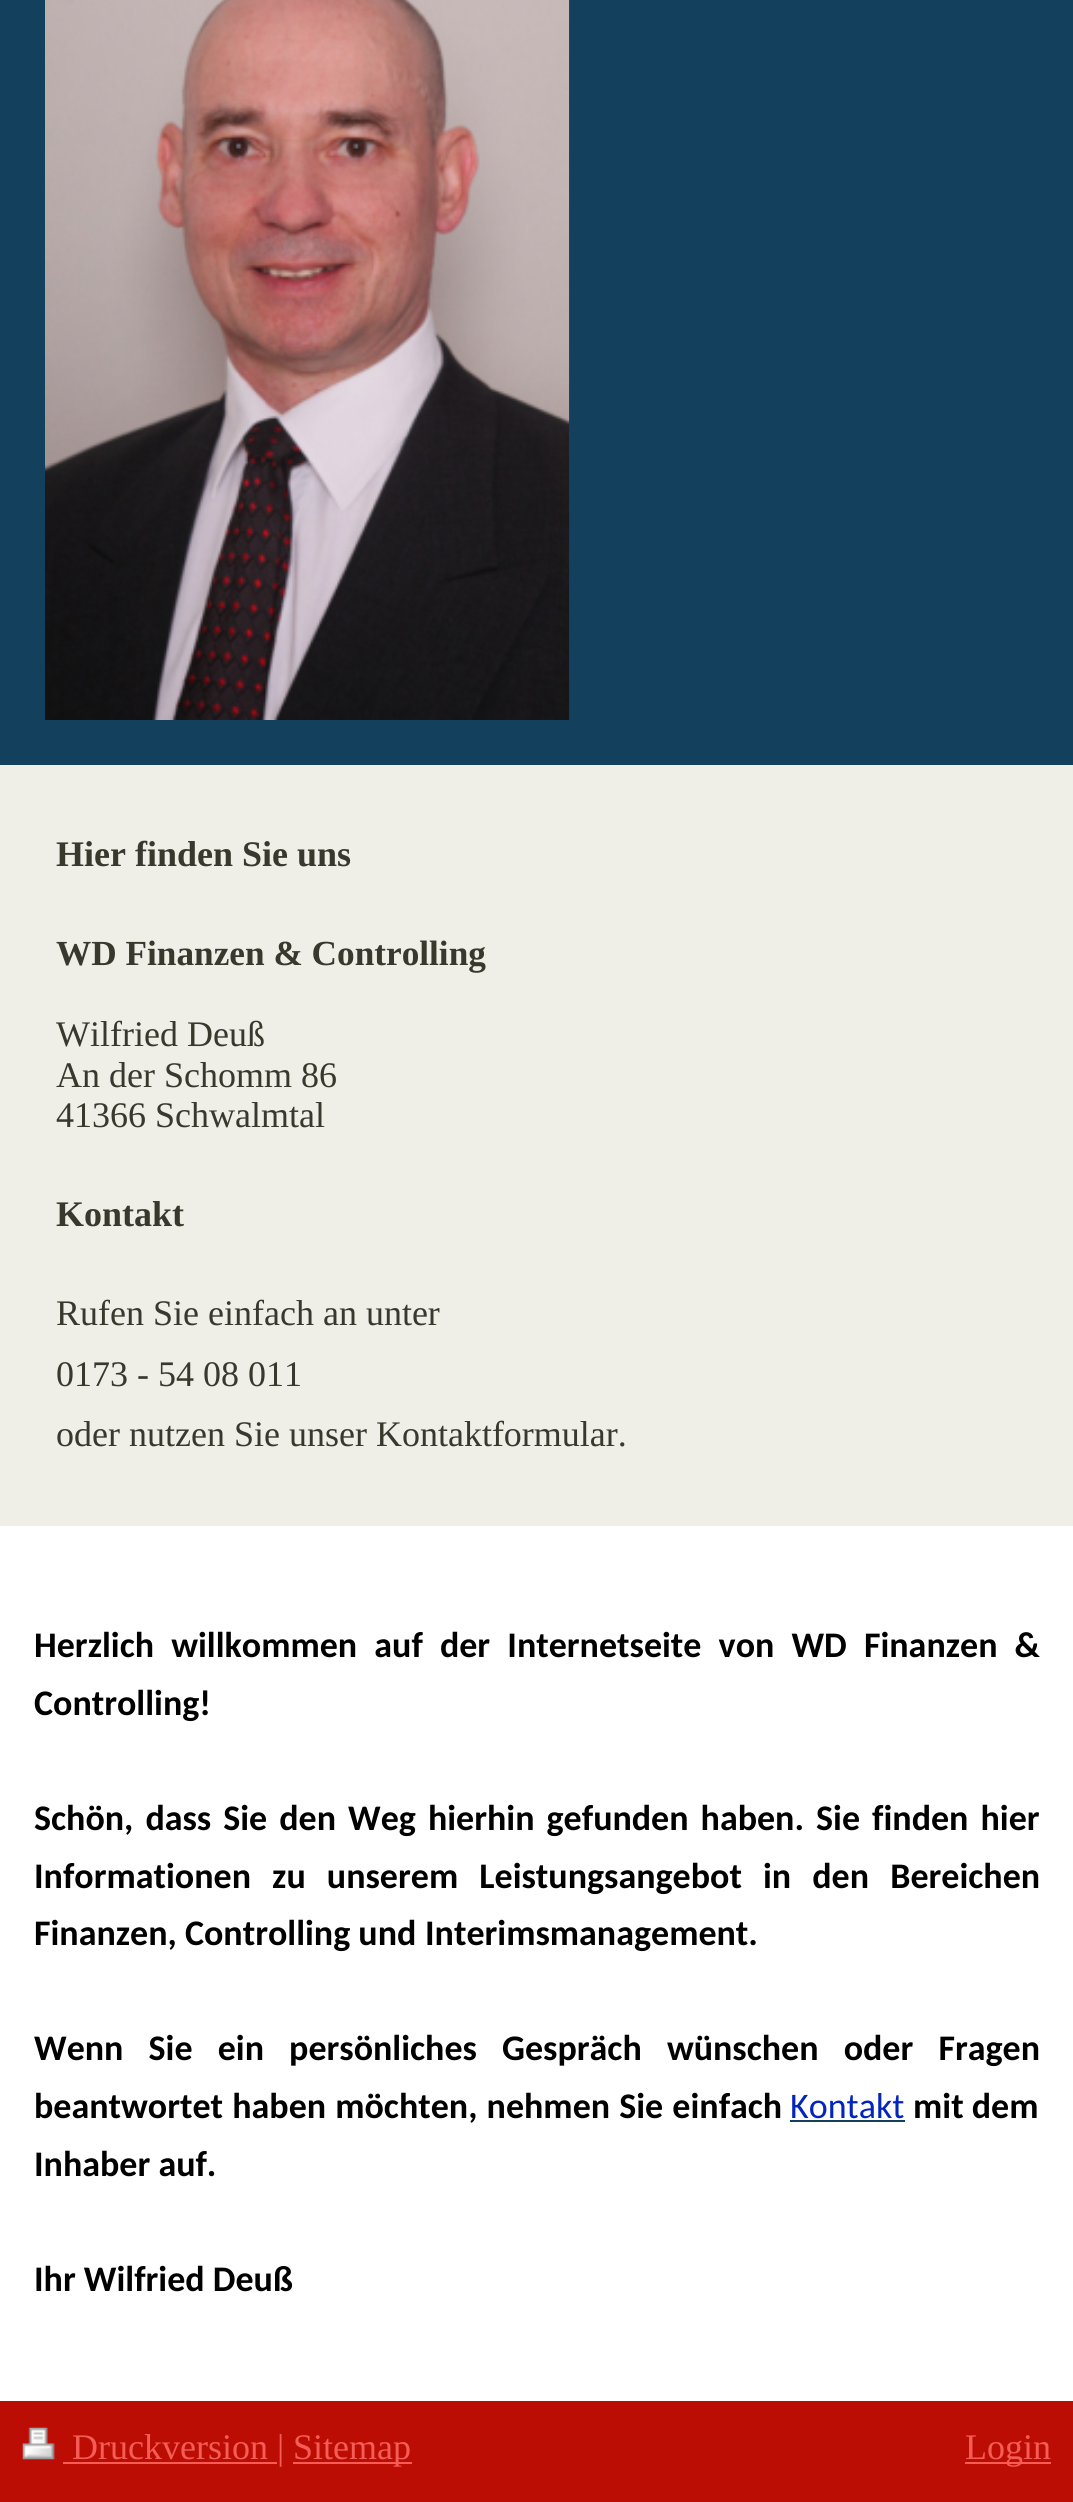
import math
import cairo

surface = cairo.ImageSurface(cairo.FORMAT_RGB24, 1073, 2502)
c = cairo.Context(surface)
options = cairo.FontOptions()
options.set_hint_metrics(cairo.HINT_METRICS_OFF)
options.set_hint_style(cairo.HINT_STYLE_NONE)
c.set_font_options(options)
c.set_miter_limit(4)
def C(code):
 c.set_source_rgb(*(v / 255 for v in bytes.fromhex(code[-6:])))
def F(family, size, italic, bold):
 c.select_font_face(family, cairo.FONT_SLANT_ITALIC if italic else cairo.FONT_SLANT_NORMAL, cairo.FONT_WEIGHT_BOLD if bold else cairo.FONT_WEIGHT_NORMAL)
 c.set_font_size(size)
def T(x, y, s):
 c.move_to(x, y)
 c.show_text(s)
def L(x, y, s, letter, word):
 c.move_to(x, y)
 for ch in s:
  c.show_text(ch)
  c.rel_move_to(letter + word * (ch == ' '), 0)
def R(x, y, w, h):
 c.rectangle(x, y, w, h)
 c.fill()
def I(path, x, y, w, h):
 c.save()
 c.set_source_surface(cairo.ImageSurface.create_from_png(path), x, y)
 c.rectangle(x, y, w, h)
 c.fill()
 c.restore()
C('ffffff')
c.paint()
C('12405d')
R(0,0,1073,765)
I('1.png',45,0,525,720)
C('efeee7')
R(0,765,1073,761)
F('Liberation Serif',36,0,1)
C('39382d')
T(56,866,'Hier finden Sie uns')
F('Liberation Serif',35.25,0,1)
T(56,965,'WD Finanzen & Controlling')
F('Liberation Serif',36,0,0)
T(56,1046,'Wilfried Deuß')
T(56,1087,'An der Schomm 86')
T(56,1127,'41366 Schwalmtal')
F('Liberation Serif',36,0,1)
T(56,1226,'Kontakt')
F('Liberation Serif',36,0,0)
T(56,1325,'Rufen Sie einfach an unter')
T(56,1386,'0173 - 54 08 011')
T(56,1446,'oder nutzen Sie unser Kontaktformular.')
F('Carlito',36,0,1)
C('000000')
L(34,1657,'Herzlich willkommen auf der Internetseite von WD Finanzen &',0,9)
T(34,1715,'Controlling!')
L(34,1830,'Schön, dass Sie den Weg hierhin gefunden haben. Sie finden hier',0,3.9)
L(34,1888,'Informationen zu unserem Leistungsangebot in den Bereichen',0,13)
T(34,1945,'Finanzen, Controlling und')
T(425,1945,'Interimsmanagement.')
L(34,2060,'Wenn Sie ein persönliches Gespräch wünschen oder Fragen',0,17)
L(34,2118,'beantwortet haben möchten, nehmen Sie einfach',0,1)
F('Carlito',36,0,0)
C('0325bc')
T(790,2118,'Kontakt')
C('12405d')
R(790,2120,115,2)
F('Carlito',36,0,1)
C('000000')
T(913,2118,'mit dem')
T(34,2176,'Inhaber auf.')
T(34,2291,'Ihr Wilfried Deuß')
C('bc0d05')
R(0,2401,1073,101)
I('2.png',22,2427,33,33)
C('f45d56')
R(63,2462,214,2)
F('Liberation Serif',36,0,0)
T(72,2459,'Druckversion |')
R(293,2462,119,2)
T(293,2459,'Sitemap')
R(965,2462,86,2)
T(965,2459,'Login')
surface.write_to_png('o.png')
